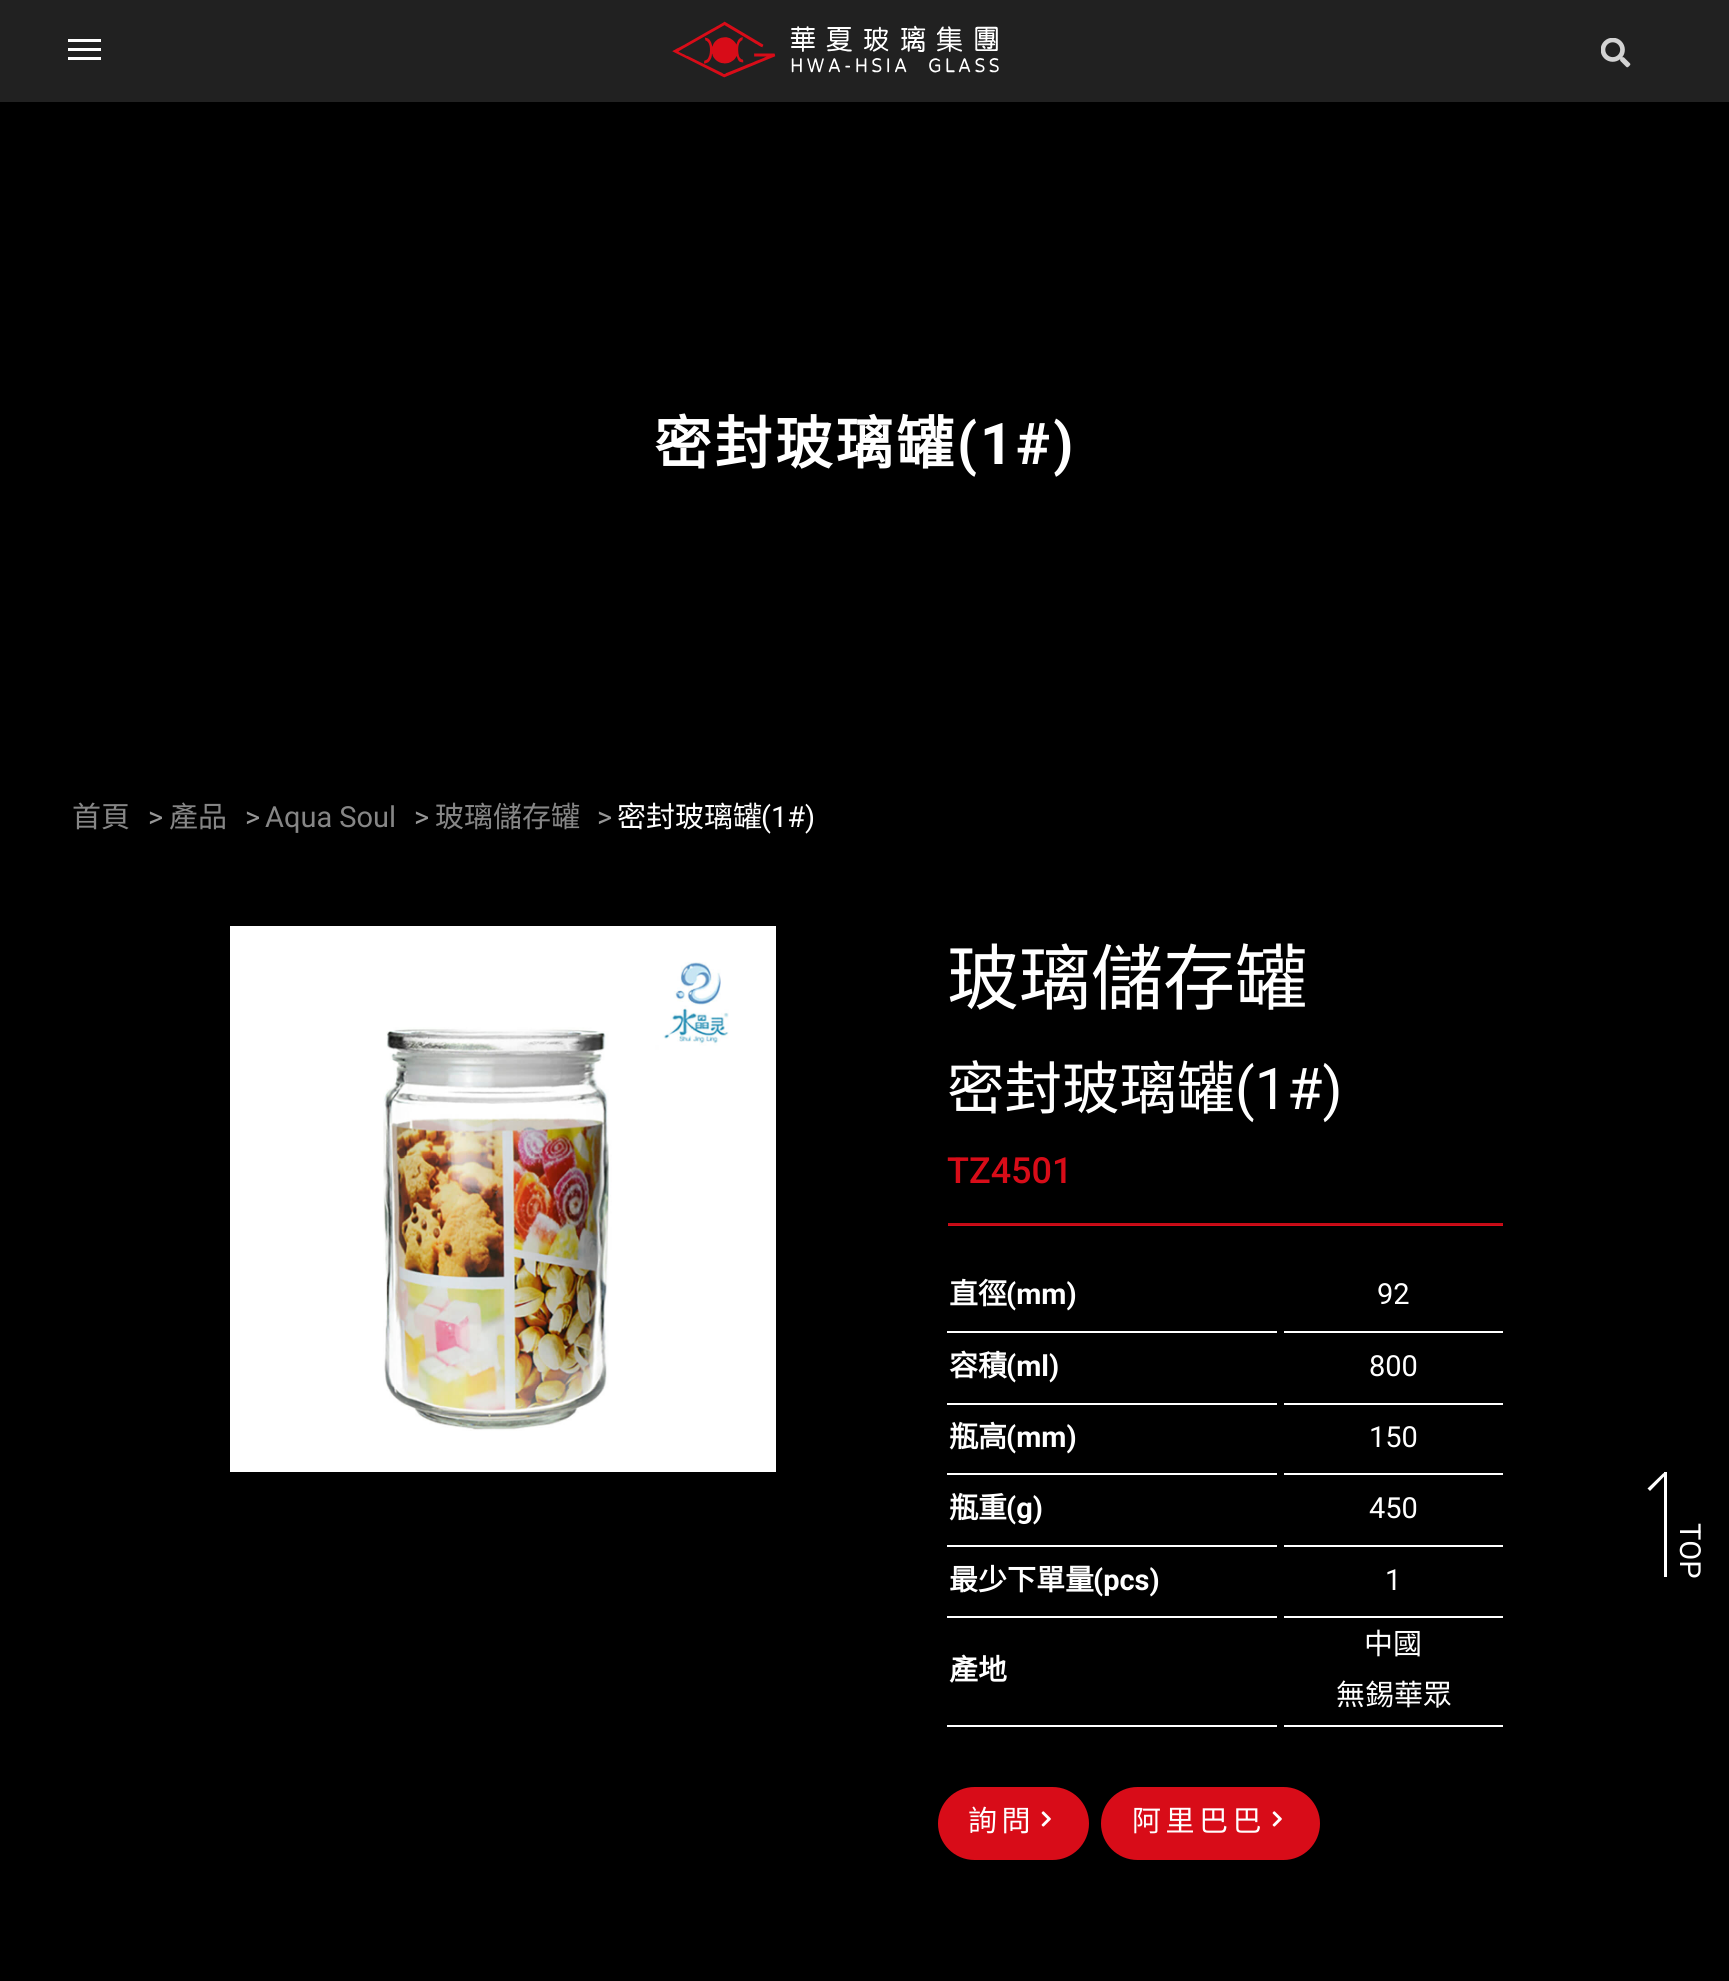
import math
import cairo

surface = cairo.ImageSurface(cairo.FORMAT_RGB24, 1729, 1981)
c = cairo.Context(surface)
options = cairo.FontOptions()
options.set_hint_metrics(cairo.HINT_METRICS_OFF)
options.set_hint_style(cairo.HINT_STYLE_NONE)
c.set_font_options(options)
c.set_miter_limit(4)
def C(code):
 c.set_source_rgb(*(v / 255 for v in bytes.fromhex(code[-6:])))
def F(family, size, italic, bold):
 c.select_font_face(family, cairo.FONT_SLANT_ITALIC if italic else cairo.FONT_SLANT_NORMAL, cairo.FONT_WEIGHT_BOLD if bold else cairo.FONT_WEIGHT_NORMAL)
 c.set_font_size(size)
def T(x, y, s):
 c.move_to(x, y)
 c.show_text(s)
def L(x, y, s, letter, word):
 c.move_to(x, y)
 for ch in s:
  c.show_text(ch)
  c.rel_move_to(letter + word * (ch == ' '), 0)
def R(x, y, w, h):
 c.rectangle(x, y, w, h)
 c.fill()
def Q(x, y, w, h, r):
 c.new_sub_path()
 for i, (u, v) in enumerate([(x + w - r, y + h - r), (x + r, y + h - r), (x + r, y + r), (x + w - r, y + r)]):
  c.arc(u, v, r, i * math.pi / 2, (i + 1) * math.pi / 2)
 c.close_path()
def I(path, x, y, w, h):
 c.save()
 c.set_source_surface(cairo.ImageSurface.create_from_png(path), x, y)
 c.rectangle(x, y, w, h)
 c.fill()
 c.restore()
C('000000')
c.paint()
C('212121')
R(0,0,1729,102)
C('ffffff')
R(68,39,33,3)
R(68,48,33,3)
R(68,57,33,3)
I('1.png',672,21,327,57)
I('2.png',1601,38,30,30)
F('Noto Sans CJK TC',57.5,0,1)
L(654,464,'密封玻璃罐',3,0)
F('Roboto',57.5,0,1)
L(957,464,'(1#)',3,0)
F('Noto Sans CJK TC',29,0,0)
C('868686')
T(72,827,'首頁')
F('Roboto',29,0,0)
C('969696')
L(148,827,'>',-8,0)
F('Noto Sans CJK TC',29,0,0)
C('868686')
T(169,827,'產品')
F('Roboto',29,0,0)
C('969696')
L(245,827,'>',-8,0)
C('868686')
T(265,827,'Aqua Soul')
C('969696')
L(414,827,'>',-8,0)
F('Noto Sans CJK TC',29,0,0)
C('868686')
T(435,827,'玻璃儲存罐')
F('Roboto',29,0,0)
C('969696')
L(597,827,'>',-8,0)
F('Noto Sans CJK TC',29,0,0)
C('ffffff')
T(617,827,'密封玻璃罐')
F('Roboto',29,0,0)
T(761,827,'(1#)')
R(230,926,546,546)
I('3.png',383,962,346,469)
F('Noto Sans CJK TC',72,0,0)
T(947,1004,'玻璃儲存罐')
F('Noto Sans CJK TC',57.5,0,0)
T(947,1109,'密封玻璃罐')
F('Roboto',57.5,0,0)
T(1235,1109,'(1#)')
F('Roboto Medium',36,0,0)
C('d80c18')
T(947,1183,'TZ4501')
R(948,1225,555,1)
C('c20b16')
R(948,1223,555,2)
C('ffffff')
R(947,1331,556,2)
F('Noto Sans CJK TC',29,0,1)
T(949,1304,'直徑')
F('Roboto',29,0,1)
T(1006,1304,'(mm)')
F('Roboto',29,0,0)
T(1377,1304,'92')
R(947,1403,556,2)
C('000000')
R(1277,1328,7,5)
F('Noto Sans CJK TC',29,0,1)
C('ffffff')
T(949,1376,'容積')
F('Roboto',29,0,1)
T(1006,1376,'(ml)')
F('Roboto',29,0,0)
T(1369,1376,'800')
R(947,1473,556,2)
C('000000')
R(1277,1400,7,5)
F('Noto Sans CJK TC',29,0,1)
C('ffffff')
T(949,1447,'瓶高')
F('Roboto',29,0,1)
T(1006,1447,'(mm)')
F('Roboto',29,0,0)
T(1369,1447,'150')
R(947,1545,556,2)
C('000000')
R(1277,1470,7,5)
F('Noto Sans CJK TC',29,0,1)
C('ffffff')
T(949,1518,'瓶重')
F('Roboto',29,0,1)
T(1006,1518,'(g)')
F('Roboto',29,0,0)
T(1369,1518,'450')
R(947,1616,556,2)
C('000000')
R(1277,1542,7,5)
F('Noto Sans CJK TC',29,0,1)
C('ffffff')
T(949,1590,'最少下單量')
F('Roboto',29,0,1)
T(1093,1590,'(pcs)')
F('Roboto',29,0,0)
T(1385,1590,'1')
R(947,1725,556,2)
C('000000')
R(1277,1613,7,117)
F('Noto Sans CJK TC',29,0,1)
C('ffffff')
T(949,1680,'產地')
F('Noto Sans CJK TC',29,0,0)
T(1364,1654,'中國')
T(1336,1705,'無錫華眾')
C('d80c18')
Q(939,1788,149,71,35.5)
c.fill_preserve()
c.stroke()
C('ffffff')
L(968,1831,'詢問',4.5,0)
I('4.png',1041,1811,10,16)
C('d80c18')
Q(1102,1788,217,71,35.5)
c.fill_preserve()
c.stroke()
C('ffffff')
L(1132,1831,'阿里巴巴',4.5,0)
I('4.png',1272,1811,10,16)
R(1664,1472,3,105)
c.new_path()
c.move_to(1663.5,1473)
c.line_to(1665.5,1475)
c.line_to(1650,1491)
c.line_to(1647.5,1488.5)
c.close_path()
c.fill()
F('Roboto',29,0,0)
c.save()
c.translate(1680,1523)
c.rotate(90 * math.pi / 180)
T(0,0,'TOP')
c.restore()
surface.write_to_png('o.png')
